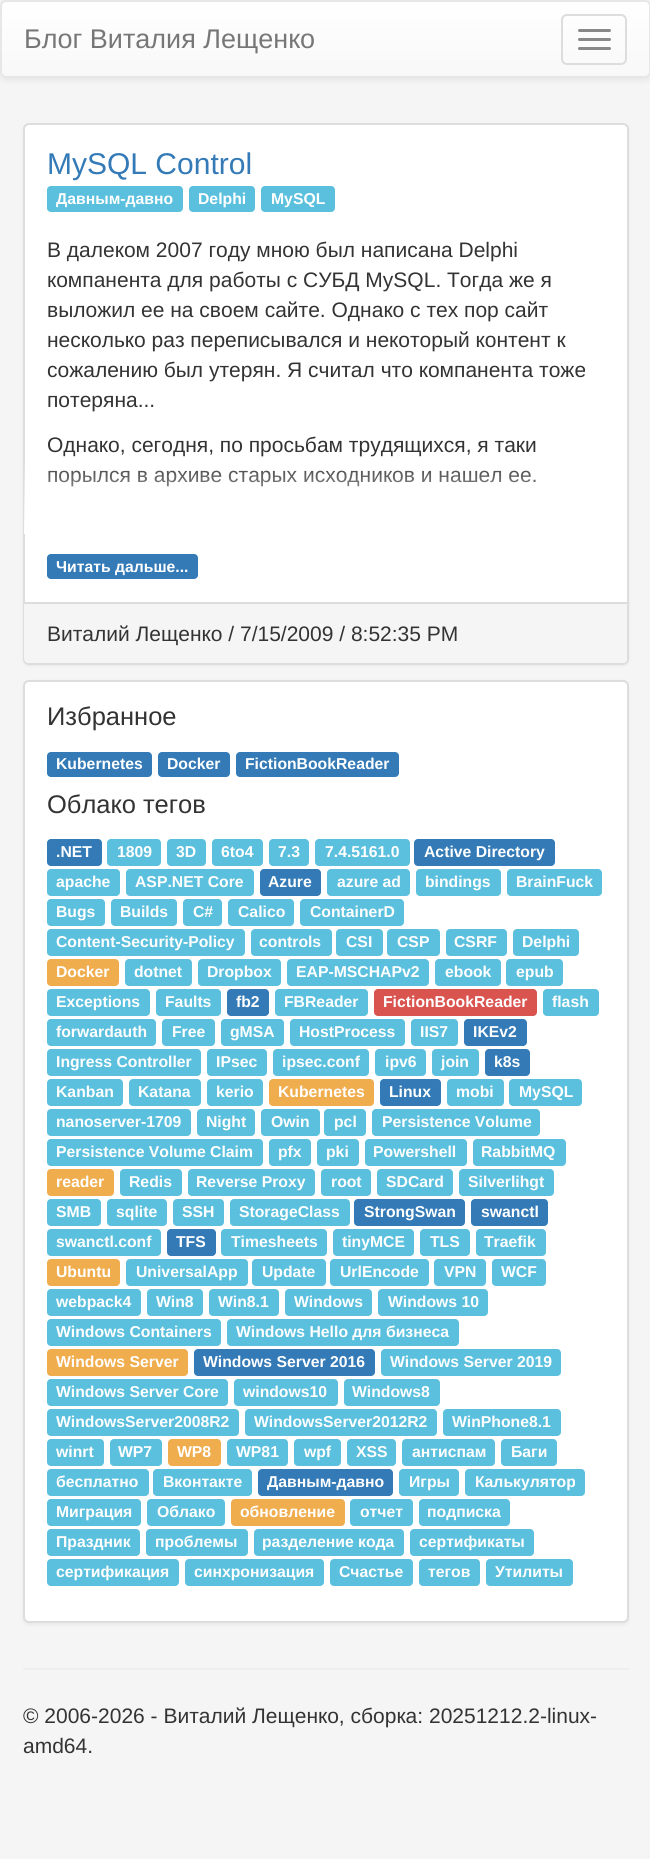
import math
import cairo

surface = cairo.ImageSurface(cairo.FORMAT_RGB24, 650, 1859)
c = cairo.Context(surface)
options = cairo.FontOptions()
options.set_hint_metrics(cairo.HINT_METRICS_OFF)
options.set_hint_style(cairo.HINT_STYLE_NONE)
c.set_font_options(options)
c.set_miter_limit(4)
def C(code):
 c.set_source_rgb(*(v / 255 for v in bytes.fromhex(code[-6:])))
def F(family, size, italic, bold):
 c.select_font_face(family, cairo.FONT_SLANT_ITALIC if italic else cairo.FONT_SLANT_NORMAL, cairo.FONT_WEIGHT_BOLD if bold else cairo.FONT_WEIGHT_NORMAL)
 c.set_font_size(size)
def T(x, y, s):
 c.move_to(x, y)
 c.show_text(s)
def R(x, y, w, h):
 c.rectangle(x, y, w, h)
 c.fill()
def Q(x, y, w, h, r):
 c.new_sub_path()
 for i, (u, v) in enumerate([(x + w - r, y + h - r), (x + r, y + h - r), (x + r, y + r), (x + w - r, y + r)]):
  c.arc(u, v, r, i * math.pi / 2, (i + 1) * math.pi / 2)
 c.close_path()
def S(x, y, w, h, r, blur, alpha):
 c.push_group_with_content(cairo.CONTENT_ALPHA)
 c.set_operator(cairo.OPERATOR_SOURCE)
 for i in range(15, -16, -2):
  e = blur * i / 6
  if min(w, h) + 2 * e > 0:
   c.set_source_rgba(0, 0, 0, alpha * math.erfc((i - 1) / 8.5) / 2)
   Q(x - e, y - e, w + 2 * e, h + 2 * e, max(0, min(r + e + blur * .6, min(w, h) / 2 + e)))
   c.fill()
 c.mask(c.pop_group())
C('f5f5f5')
c.paint()
C('000000')
S(0,2,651,78,6,4,.07)
c.save()
Q(0,0,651,78,6)
c.clip()
gradient = cairo.LinearGradient(326,1.5,326,77)
gradient.add_color_stop_rgba(0,1,1,1,1)
gradient.add_color_stop_rgba(1,0.973,0.973,0.973,1)
c.set_source(gradient)
R(0,2,650,75)
c.restore()
Q(1,1,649,76,5)
C('e7e7e7')
c.stroke()
F('Liberation Sans',27,0,0)
C('777777')
T(24,48,'Блог Виталия Лещенко')
Q(562,15,64,49,5)
C('dddddd')
c.stroke()
C('888888')
Q(578,29,33,3,1.5)
c.fill()
Q(578,38,33,3,1.5)
c.fill()
Q(578,47,33,3,1.5)
c.fill()
C('000000')
S(23,125,606,541,6,1.5,.05)
C('ffffff')
Q(24,124,604,540,5)
c.fill_preserve()
C('dddddd')
c.stroke()
F('Liberation Sans',30,0,0)
C('337ab7')
T(47,174,'MySQL Control')
C('5bc0de')
Q(47,186,136,26,4)
c.fill()
F('Liberation Sans',15.75,0,1)
C('ffffff')
T(56,204,'Давным-давно')
C('5bc0de')
Q(189,186,66,26,4)
c.fill()
C('ffffff')
T(198,204,'Delphi')
C('5bc0de')
Q(261,186,74,26,4)
c.fill()
C('ffffff')
T(271,204,'MySQL')
F('Liberation Sans',21,0,0)
C('333333')
T(47,257,'В далеком 2007 году мною был написана Delphi')
T(47,287,'компанента для работы с СУБД MySQL. Тогда же я')
T(47,317,'выложил ее на своем сайте. Однако с тех пор сайт')
T(47,347,'несколько раз переписывался и некоторый контент к')
T(47,377,'сожалению был утерян. Я считал что компанента тоже')
T(47,407,'потеряна...')
T(47,452,'Однако, сегодня, по просьбам трудящихся, я таки')
T(47,482,'порылся в архиве старых исходников и нашел ее.')
gradient = cairo.LinearGradient(326,534,326,459)
gradient.add_color_stop_rgba(0,1,1,1,1)
gradient.add_color_stop_rgba(1,1,1,1,0)
c.set_source(gradient)
R(24,465,511,69)
C('337ab7')
Q(47,554,151,25,4)
c.fill()
F('Liberation Sans',15.75,0,1)
C('ffffff')
T(56,572,'Читать дальше...')
C('f5f5f5')
c.new_path()
c.move_to(24,602)
c.line_to(627,602)
c.line_to(627,658)
c.curve_to(627,661,625,663,622,663)
c.line_to(29,663)
c.curve_to(26,663,24,661,24,658)
c.close_path()
c.fill()
C('dddddd')
R(24,602,603,2)
F('Liberation Sans',21,0,0)
C('333333')
T(47,641,'Виталий Лещенко / 7/15/2009 / 8:52:35 PM')
C('000000')
S(23,681,606,944,6,1.5,.05)
C('ffffff')
Q(24,681,604,941,5)
c.fill_preserve()
C('dddddd')
c.stroke()
F('Liberation Sans',25.5,0,0)
C('333333')
T(47,725,'Избранное')
C('337ab7')
Q(47,752,105,25,4)
c.fill()
F('Liberation Sans',15.75,0,1)
C('ffffff')
T(56,769,'Kubernetes')
C('337ab7')
Q(158,752,72,25,4)
c.fill()
C('ffffff')
T(167,769,'Docker')
C('337ab7')
Q(236,752,163,25,4)
c.fill()
C('ffffff')
T(245,769,'FictionBookReader')
F('Liberation Sans',25.5,0,0)
C('333333')
T(47,813,'Облако тегов')
C('337ab7')
Q(47,839,55,27,4)
c.fill()
F('Liberation Sans',15.75,0,1)
C('ffffff')
T(56,857,'.NET')
C('5bc0de')
Q(107,839,54,27,4)
c.fill()
C('ffffff')
T(117,857,'1809')
C('5bc0de')
Q(167,839,39,27,4)
c.fill()
C('ffffff')
T(176,857,'3D')
C('5bc0de')
Q(212,839,51,27,4)
c.fill()
C('ffffff')
T(221,857,'6to4')
C('5bc0de')
Q(269,839,40,27,4)
c.fill()
C('ffffff')
T(278,857,'7.3')
C('5bc0de')
Q(315,839,95,27,4)
c.fill()
C('ffffff')
T(325,857,'7.4.5161.0')
C('337ab7')
Q(414,839,141,27,4)
c.fill()
C('ffffff')
T(424,857,'Active Directory')
C('5bc0de')
Q(47,869,73,27,4)
c.fill()
C('ffffff')
T(56,887,'apache')
C('5bc0de')
Q(126,869,128,27,4)
c.fill()
C('ffffff')
T(135,887,'ASP.NET Core')
C('337ab7')
Q(260,869,61,27,4)
c.fill()
C('ffffff')
T(268,887,'Azure')
C('5bc0de')
Q(327,869,83,27,4)
c.fill()
C('ffffff')
T(337,887,'azure ad')
C('5bc0de')
Q(416,869,85,27,4)
c.fill()
C('ffffff')
T(425,887,'bindings')
C('5bc0de')
Q(507,869,95,27,4)
c.fill()
C('ffffff')
T(516,887,'BrainFuck')
C('5bc0de')
Q(47,899,58,27,4)
c.fill()
C('ffffff')
T(56,917,'Bugs')
C('5bc0de')
Q(111,899,66,27,4)
c.fill()
C('ffffff')
T(120,917,'Builds')
C('5bc0de')
Q(183,899,39,27,4)
c.fill()
C('ffffff')
T(193,917,'C#')
C('5bc0de')
Q(228,899,66,27,4)
c.fill()
C('ffffff')
T(238,917,'Calico')
C('5bc0de')
Q(300,899,104,27,4)
c.fill()
C('ffffff')
T(310,917,'ContainerD')
C('5bc0de')
Q(47,929,198,27,4)
c.fill()
C('ffffff')
T(56,947,'Content-Security-Policy')
C('5bc0de')
Q(251,929,81,27,4)
c.fill()
C('ffffff')
T(259,947,'controls')
C('5bc0de')
Q(336,929,47,27,4)
c.fill()
C('ffffff')
T(346,947,'CSI')
C('5bc0de')
Q(387,929,53,27,4)
c.fill()
C('ffffff')
T(397,947,'CSP')
C('5bc0de')
Q(446,929,61,27,4)
c.fill()
C('ffffff')
T(454,947,'CSRF')
C('5bc0de')
Q(513,929,66,27,4)
c.fill()
C('ffffff')
T(522,947,'Delphi')
C('f0ad4e')
Q(47,959,72,27,4)
c.fill()
C('ffffff')
T(56,977,'Docker')
C('5bc0de')
Q(125,959,67,27,4)
c.fill()
C('ffffff')
T(134,977,'dotnet')
C('5bc0de')
Q(198,959,83,27,4)
c.fill()
C('ffffff')
T(207,977,'Dropbox')
C('5bc0de')
Q(287,959,142,27,4)
c.fill()
C('ffffff')
T(296,977,'EAP-MSCHAPv2')
C('5bc0de')
Q(435,959,66,27,4)
c.fill()
C('ffffff')
T(445,977,'ebook')
C('5bc0de')
Q(506,959,57,27,4)
c.fill()
C('ffffff')
T(516,977,'epub')
C('5bc0de')
Q(47,989,103,27,4)
c.fill()
C('ffffff')
T(56,1007,'Exceptions')
C('5bc0de')
Q(156,989,65,27,4)
c.fill()
C('ffffff')
T(165,1007,'Faults')
C('337ab7')
Q(227,989,42,27,4)
c.fill()
C('ffffff')
T(236,1007,'fb2')
C('5bc0de')
Q(275,989,93,27,4)
c.fill()
C('ffffff')
T(284,1007,'FBReader')
C('d9534f')
Q(374,989,163,27,4)
c.fill()
C('ffffff')
T(383,1007,'FictionBookReader')
C('5bc0de')
Q(543,989,56,27,4)
c.fill()
C('ffffff')
T(552,1007,'flash')
C('5bc0de')
Q(47,1019,109,27,4)
c.fill()
C('ffffff')
T(56,1037,'forwardauth')
C('5bc0de')
Q(162,1019,53,27,4)
c.fill()
C('ffffff')
T(172,1037,'Free')
C('5bc0de')
Q(221,1019,63,27,4)
c.fill()
C('ffffff')
T(230,1037,'gMSA')
C('5bc0de')
Q(290,1019,115,27,4)
c.fill()
C('ffffff')
T(299,1037,'HostProcess')
C('5bc0de')
Q(411,1019,47,27,4)
c.fill()
C('ffffff')
T(420,1037,'IIS7')
C('337ab7')
Q(464,1019,63,27,4)
c.fill()
C('ffffff')
T(473,1037,'IKEv2')
C('5bc0de')
Q(47,1049,154,27,4)
c.fill()
C('ffffff')
T(56,1067,'Ingress Controller')
C('5bc0de')
Q(207,1049,60,27,4)
c.fill()
C('ffffff')
T(216,1067,'IPsec')
C('5bc0de')
Q(273,1049,96,27,4)
c.fill()
C('ffffff')
T(282,1067,'ipsec.conf')
C('5bc0de')
Q(375,1049,51,27,4)
c.fill()
C('ffffff')
T(385,1067,'ipv6')
C('5bc0de')
Q(432,1049,47,27,4)
c.fill()
C('ffffff')
T(441,1067,'join')
C('337ab7')
Q(485,1049,45,27,4)
c.fill()
C('ffffff')
T(494,1067,'k8s')
C('5bc0de')
Q(47,1079,76,27,4)
c.fill()
C('ffffff')
T(56,1097,'Kanban')
C('5bc0de')
Q(129,1079,72,27,4)
c.fill()
C('ffffff')
T(138,1097,'Katana')
C('5bc0de')
Q(207,1079,56,27,4)
c.fill()
C('ffffff')
T(216,1097,'kerio')
C('f0ad4e')
Q(269,1079,105,27,4)
c.fill()
C('ffffff')
T(278,1097,'Kubernetes')
C('337ab7')
Q(380,1079,61,27,4)
c.fill()
C('ffffff')
T(389,1097,'Linux')
C('5bc0de')
Q(447,1079,57,27,4)
c.fill()
C('ffffff')
T(456,1097,'mobi')
C('5bc0de')
Q(509,1079,73,27,4)
c.fill()
C('ffffff')
T(519,1097,'MySQL')
C('5bc0de')
Q(47,1109,144,27,4)
c.fill()
C('ffffff')
T(56,1127,'nanoserver-1709')
C('5bc0de')
Q(197,1109,58,27,4)
c.fill()
C('ffffff')
T(206,1127,'Night')
C('5bc0de')
Q(261,1109,59,27,4)
c.fill()
C('ffffff')
T(271,1127,'Owin')
C('5bc0de')
Q(324,1109,42,27,4)
c.fill()
C('ffffff')
T(334,1127,'pcl')
C('5bc0de')
Q(372,1109,168,27,4)
c.fill()
C('ffffff')
T(382,1127,'Persistence Volume')
C('5bc0de')
Q(47,1139,216,27,4)
c.fill()
C('ffffff')
T(56,1157,'Persistence Volume Claim')
C('5bc0de')
Q(269,1139,42,27,4)
c.fill()
C('ffffff')
T(278,1157,'pfx')
C('5bc0de')
Q(317,1139,42,27,4)
c.fill()
C('ffffff')
T(326,1157,'pki')
C('5bc0de')
Q(365,1139,102,27,4)
c.fill()
C('ffffff')
T(373,1157,'Powershell')
C('5bc0de')
Q(473,1139,93,27,4)
c.fill()
C('ffffff')
T(481,1157,'RabbitMQ')
C('f0ad4e')
Q(47,1169,67,27,4)
c.fill()
C('ffffff')
T(56,1187,'reader')
C('5bc0de')
Q(120,1169,62,27,4)
c.fill()
C('ffffff')
T(129,1187,'Redis')
C('5bc0de')
Q(188,1169,127,27,4)
c.fill()
C('ffffff')
T(196,1187,'Reverse Proxy')
C('5bc0de')
Q(321,1169,50,27,4)
c.fill()
C('ffffff')
T(331,1187,'root')
C('5bc0de')
Q(377,1169,76,27,4)
c.fill()
C('ffffff')
T(386,1187,'SDCard')
C('5bc0de')
Q(459,1169,95,27,4)
c.fill()
C('ffffff')
T(468,1187,'Silverlihgt')
C('5bc0de')
Q(47,1199,54,27,4)
c.fill()
C('ffffff')
T(56,1217,'SMB')
C('5bc0de')
Q(107,1199,60,27,4)
c.fill()
C('ffffff')
T(116,1217,'sqlite')
C('5bc0de')
Q(173,1199,51,27,4)
c.fill()
C('ffffff')
T(182,1217,'SSH')
C('5bc0de')
Q(230,1199,120,27,4)
c.fill()
C('ffffff')
T(239,1217,'StorageClass')
C('337ab7')
Q(354,1199,111,27,4)
c.fill()
C('ffffff')
T(364,1217,'StrongSwan')
C('337ab7')
Q(471,1199,77,27,4)
c.fill()
C('ffffff')
T(481,1217,'swanctl')
C('5bc0de')
Q(47,1229,114,27,4)
c.fill()
C('ffffff')
T(56,1247,'swanctl.conf')
C('337ab7')
Q(167,1229,49,27,4)
c.fill()
C('ffffff')
T(176,1247,'TFS')
C('5bc0de')
Q(221,1229,106,27,4)
c.fill()
C('ffffff')
T(231,1247,'Timesheets')
C('5bc0de')
Q(333,1229,81,27,4)
c.fill()
C('ffffff')
T(342,1247,'tinyMCE')
C('5bc0de')
Q(420,1229,50,27,4)
c.fill()
C('ffffff')
T(430,1247,'TLS')
C('5bc0de')
Q(476,1229,70,27,4)
c.fill()
C('ffffff')
T(484,1247,'Traefik')
C('f0ad4e')
Q(47,1259,73,27,4)
c.fill()
C('ffffff')
T(56,1277,'Ubuntu')
C('5bc0de')
Q(126,1259,122,27,4)
c.fill()
C('ffffff')
T(136,1277,'UniversalApp')
C('5bc0de')
Q(252,1259,74,27,4)
c.fill()
C('ffffff')
T(262,1277,'Update')
C('5bc0de')
Q(330,1259,99,27,4)
c.fill()
C('ffffff')
T(340,1277,'UrlEncode')
C('5bc0de')
Q(434,1259,52,27,4)
c.fill()
C('ffffff')
T(444,1277,'VPN')
C('5bc0de')
Q(492,1259,54,27,4)
c.fill()
C('ffffff')
T(501,1277,'WCF')
C('5bc0de')
Q(47,1289,94,27,4)
c.fill()
C('ffffff')
T(56,1307,'webpack4')
C('5bc0de')
Q(147,1289,56,27,4)
c.fill()
C('ffffff')
T(156,1307,'Win8')
C('5bc0de')
Q(209,1289,70,27,4)
c.fill()
C('ffffff')
T(218,1307,'Win8.1')
C('5bc0de')
Q(285,1289,87,27,4)
c.fill()
C('ffffff')
T(294,1307,'Windows')
C('5bc0de')
Q(378,1289,110,27,4)
c.fill()
C('ffffff')
T(388,1307,'Windows 10')
C('5bc0de')
Q(47,1319,174,27,4)
c.fill()
C('ffffff')
T(56,1337,'Windows Containers')
C('5bc0de')
Q(227,1319,232,27,4)
c.fill()
C('ffffff')
T(236,1337,'Windows Hello для бизнеса')
C('f0ad4e')
Q(47,1349,141,27,4)
c.fill()
C('ffffff')
T(56,1367,'Windows Server')
C('337ab7')
Q(194,1349,181,27,4)
c.fill()
C('ffffff')
T(203,1367,'Windows Server 2016')
C('5bc0de')
Q(381,1349,180,27,4)
c.fill()
C('ffffff')
T(390,1367,'Windows Server 2019')
C('5bc0de')
Q(47,1379,181,27,4)
c.fill()
C('ffffff')
T(56,1397,'Windows Server Core')
C('5bc0de')
Q(234,1379,104,27,4)
c.fill()
C('ffffff')
T(243,1397,'windows10')
C('5bc0de')
Q(344,1379,96,27,4)
c.fill()
C('ffffff')
T(352,1397,'Windows8')
C('5bc0de')
Q(47,1409,192,27,4)
c.fill()
C('ffffff')
T(56,1427,'WindowsServer2008R2')
C('5bc0de')
Q(245,1409,192,27,4)
c.fill()
C('ffffff')
T(254,1427,'WindowsServer2012R2')
C('5bc0de')
Q(443,1409,118,27,4)
c.fill()
C('ffffff')
T(452,1427,'WinPhone8.1')
C('5bc0de')
Q(47,1439,57,27,4)
c.fill()
C('ffffff')
T(56,1457,'winrt')
C('5bc0de')
Q(110,1439,52,27,4)
c.fill()
C('ffffff')
T(118,1457,'WP7')
C('f0ad4e')
Q(168,1439,53,27,4)
c.fill()
C('ffffff')
T(177,1457,'WP8')
C('5bc0de')
Q(227,1439,61,27,4)
c.fill()
C('ffffff')
T(236,1457,'WP81')
C('5bc0de')
Q(294,1439,47,27,4)
c.fill()
C('ffffff')
T(304,1457,'wpf')
C('5bc0de')
Q(347,1439,49,27,4)
c.fill()
C('ffffff')
T(356,1457,'XSS')
C('5bc0de')
Q(402,1439,93,27,4)
c.fill()
C('ffffff')
T(412,1457,'антиспам')
C('5bc0de')
Q(501,1439,56,27,4)
c.fill()
C('ffffff')
T(511,1457,'Баги')
C('5bc0de')
Q(47,1469,102,27,4)
c.fill()
C('ffffff')
T(56,1487,'бесплатно')
C('5bc0de')
Q(153,1469,99,27,4)
c.fill()
C('ffffff')
T(163,1487,'Вконтакте')
C('337ab7')
Q(258,1469,135,27,4)
c.fill()
C('ffffff')
T(267,1487,'Давным-давно')
C('5bc0de')
Q(399,1469,60,27,4)
c.fill()
C('ffffff')
T(409,1487,'Игры')
C('5bc0de')
Q(465,1469,120,27,4)
c.fill()
C('ffffff')
T(475,1487,'Калькулятор')
C('5bc0de')
Q(47,1499,94,27,4)
c.fill()
C('ffffff')
T(56,1517,'Миграция')
C('5bc0de')
Q(147,1499,78,27,4)
c.fill()
C('ffffff')
T(157,1517,'Облако')
C('f0ad4e')
Q(231,1499,114,27,4)
c.fill()
C('ffffff')
T(240,1517,'обновление')
C('5bc0de')
Q(350,1499,63,27,4)
c.fill()
C('ffffff')
T(360,1517,'отчет')
C('5bc0de')
Q(419,1499,91,27,4)
c.fill()
C('ffffff')
T(427,1517,'подписка')
C('5bc0de')
Q(47,1529,93,27,4)
c.fill()
C('ffffff')
T(56,1547,'Праздник')
C('5bc0de')
Q(146,1529,102,27,4)
c.fill()
C('ffffff')
T(155,1547,'проблемы')
C('5bc0de')
Q(254,1529,150,27,4)
c.fill()
C('ffffff')
T(262,1547,'разделение кода')
C('5bc0de')
Q(410,1529,124,27,4)
c.fill()
C('ffffff')
T(419,1547,'сертификаты')
C('5bc0de')
Q(47,1559,132,27,4)
c.fill()
C('ffffff')
T(56,1577,'сертификация')
C('5bc0de')
Q(185,1559,139,27,4)
c.fill()
C('ffffff')
T(194,1577,'синхронизация')
C('5bc0de')
Q(330,1559,83,27,4)
c.fill()
C('ffffff')
T(339,1577,'Счастье')
C('5bc0de')
Q(419,1559,61,27,4)
c.fill()
C('ffffff')
T(428,1577,'тегов')
C('5bc0de')
Q(486,1559,87,27,4)
c.fill()
C('ffffff')
T(495,1577,'Утилиты')
C('eeeeee')
R(23,1668,606,2)
F('Liberation Sans',21,0,0)
C('333333')
T(23,1723,'© 2006-2026 - Виталий Лещенко, сборка: 20251212.2-linux-')
T(23,1753,'amd64.')
surface.write_to_png('o.png')
